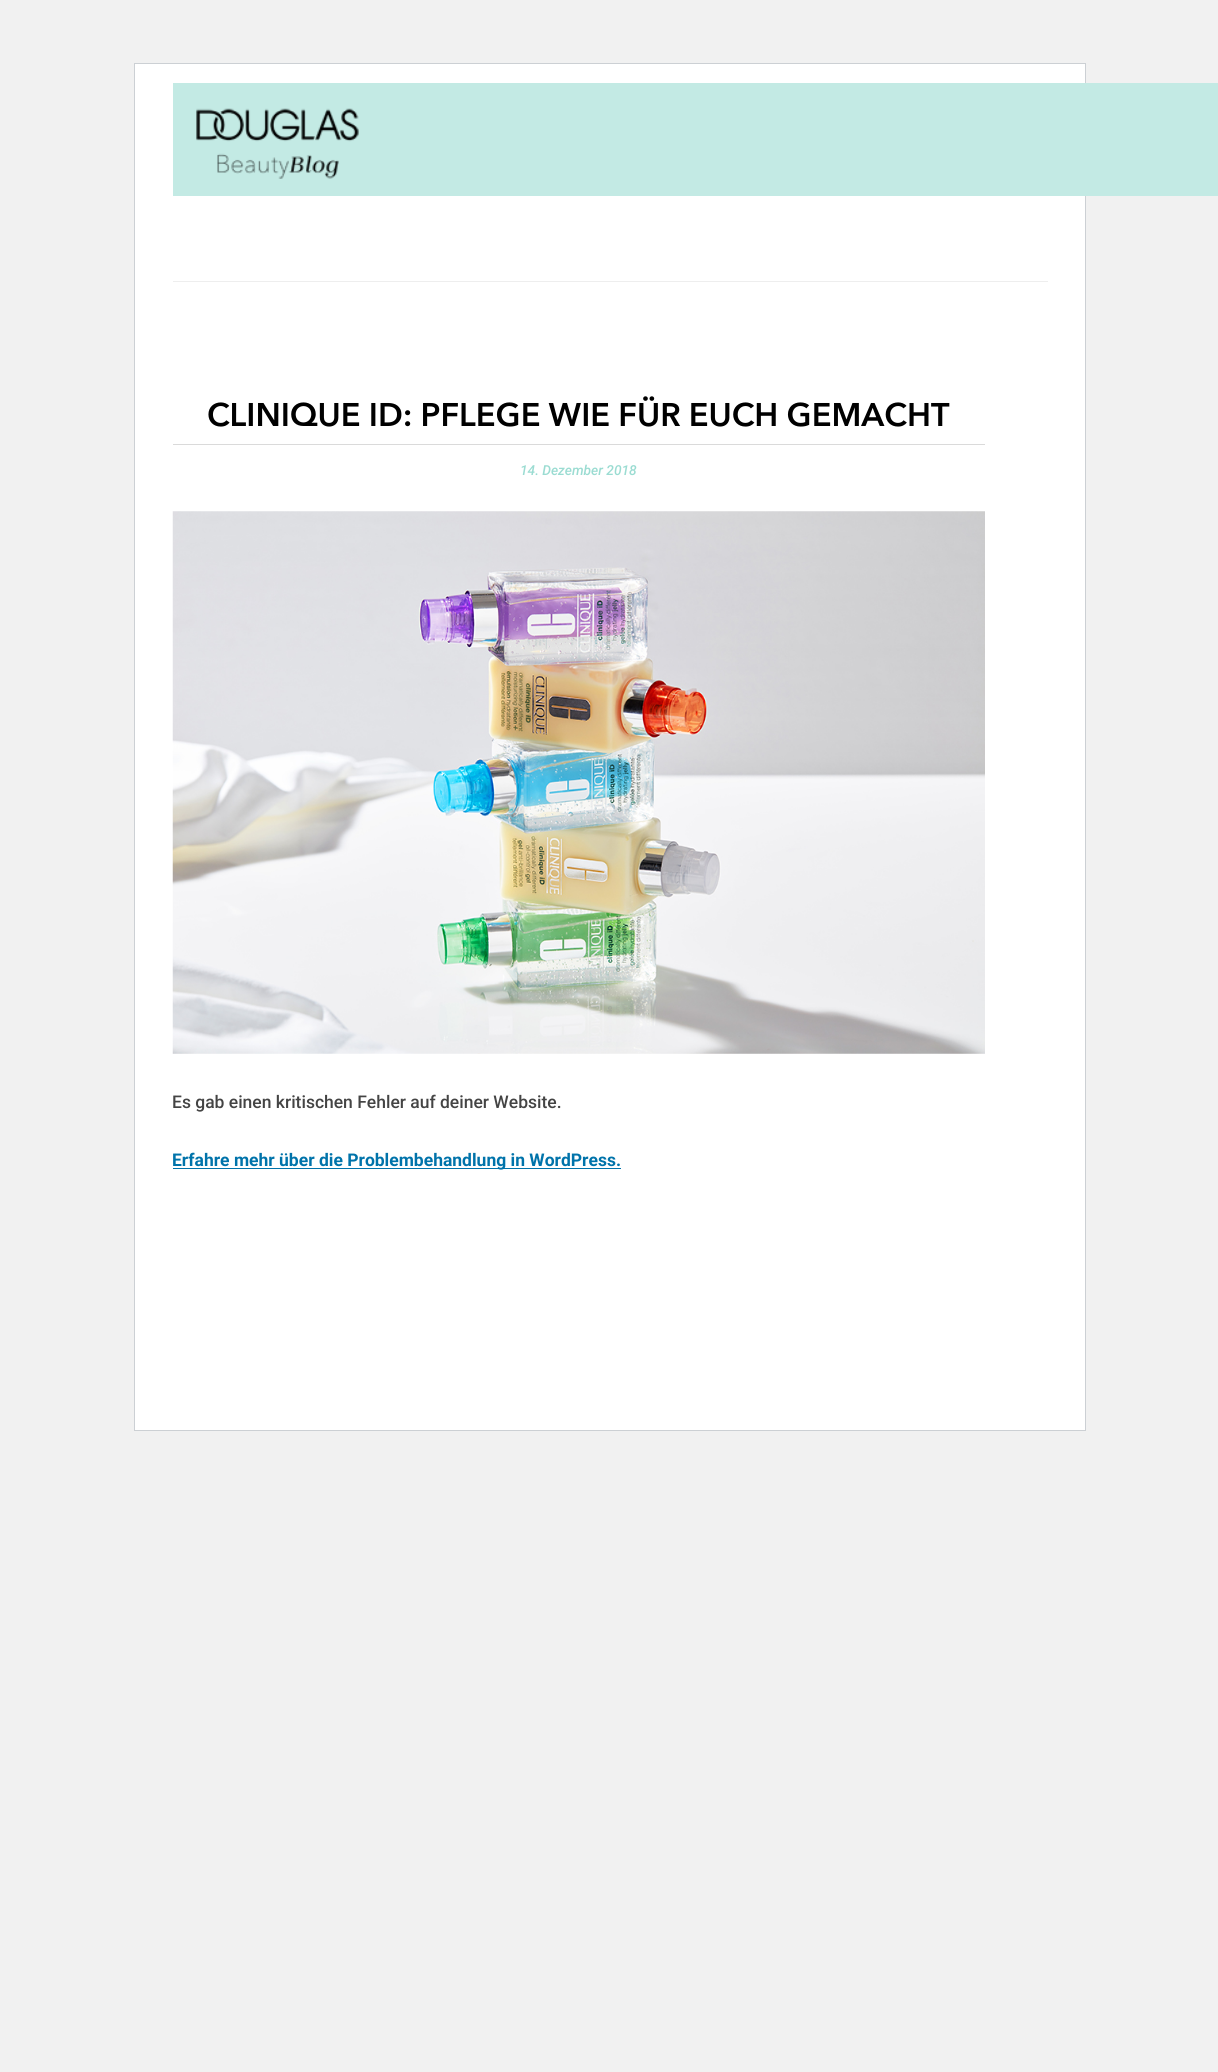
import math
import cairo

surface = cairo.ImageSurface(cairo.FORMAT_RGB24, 1218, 2072)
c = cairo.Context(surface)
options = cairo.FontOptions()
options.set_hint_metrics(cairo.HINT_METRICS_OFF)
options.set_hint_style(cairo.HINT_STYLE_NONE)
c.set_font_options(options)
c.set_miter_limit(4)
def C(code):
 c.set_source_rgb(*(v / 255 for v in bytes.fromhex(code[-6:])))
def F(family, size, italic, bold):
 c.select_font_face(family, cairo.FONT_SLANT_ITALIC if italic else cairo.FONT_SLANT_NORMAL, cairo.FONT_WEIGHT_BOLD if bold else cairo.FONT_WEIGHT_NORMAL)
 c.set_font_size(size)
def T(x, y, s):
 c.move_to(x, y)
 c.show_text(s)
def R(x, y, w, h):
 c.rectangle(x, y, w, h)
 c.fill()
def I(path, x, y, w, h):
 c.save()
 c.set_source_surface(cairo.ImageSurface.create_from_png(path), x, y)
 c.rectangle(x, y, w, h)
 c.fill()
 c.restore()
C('f1f1f1')
c.paint()
C('ffffff')
c.rectangle(134.5,63.5,951,1367)
c.fill_preserve()
C('ccd0d4')
c.set_line_width(1)
c.stroke()
C('c3eae4')
R(173,83,1045,113)
I('1.png',196,108,163,71)
C('eeeeee')
R(173,281,875,1)
C('dadada')
R(173,444,812,1)
F('Avenir Next',32.5,0,1)
C('000000')
T(207,426,'CLINIQUE ID: PFLEGE WIE FÜR EUCH GEMACHT')
F('Roboto Medium',13.75,1,0)
C('9bdcd2')
T(520,475,'14. Dezember 2018')
I('2.png',172,511,813,543)
F('Roboto Medium',17.5,0,0)
C('444444')
T(172,1108,'Es gab einen kritischen Fehler auf deiner Website.')
C('0073aa')
R(173,1168,448,1)
F('Roboto',17.5,0,1)
T(172,1166,'Erfahre mehr über die Problembehandlung in WordPress.')
surface.write_to_png('o.png')
